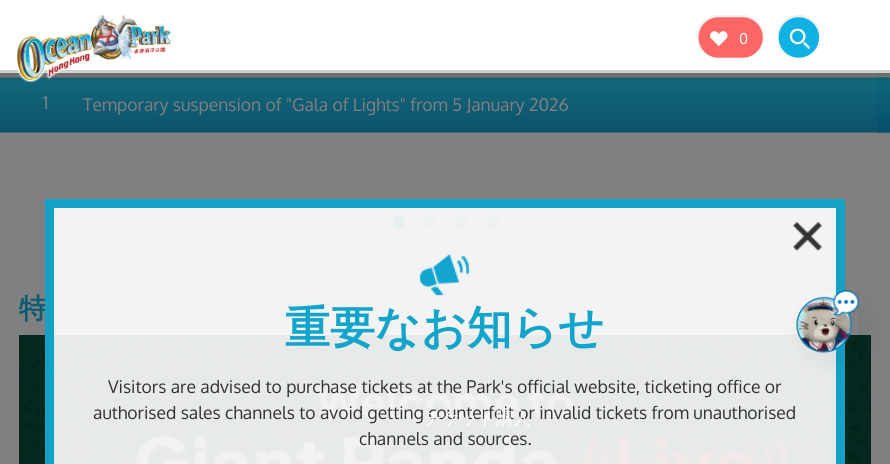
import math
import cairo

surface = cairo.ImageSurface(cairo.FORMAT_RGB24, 890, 464)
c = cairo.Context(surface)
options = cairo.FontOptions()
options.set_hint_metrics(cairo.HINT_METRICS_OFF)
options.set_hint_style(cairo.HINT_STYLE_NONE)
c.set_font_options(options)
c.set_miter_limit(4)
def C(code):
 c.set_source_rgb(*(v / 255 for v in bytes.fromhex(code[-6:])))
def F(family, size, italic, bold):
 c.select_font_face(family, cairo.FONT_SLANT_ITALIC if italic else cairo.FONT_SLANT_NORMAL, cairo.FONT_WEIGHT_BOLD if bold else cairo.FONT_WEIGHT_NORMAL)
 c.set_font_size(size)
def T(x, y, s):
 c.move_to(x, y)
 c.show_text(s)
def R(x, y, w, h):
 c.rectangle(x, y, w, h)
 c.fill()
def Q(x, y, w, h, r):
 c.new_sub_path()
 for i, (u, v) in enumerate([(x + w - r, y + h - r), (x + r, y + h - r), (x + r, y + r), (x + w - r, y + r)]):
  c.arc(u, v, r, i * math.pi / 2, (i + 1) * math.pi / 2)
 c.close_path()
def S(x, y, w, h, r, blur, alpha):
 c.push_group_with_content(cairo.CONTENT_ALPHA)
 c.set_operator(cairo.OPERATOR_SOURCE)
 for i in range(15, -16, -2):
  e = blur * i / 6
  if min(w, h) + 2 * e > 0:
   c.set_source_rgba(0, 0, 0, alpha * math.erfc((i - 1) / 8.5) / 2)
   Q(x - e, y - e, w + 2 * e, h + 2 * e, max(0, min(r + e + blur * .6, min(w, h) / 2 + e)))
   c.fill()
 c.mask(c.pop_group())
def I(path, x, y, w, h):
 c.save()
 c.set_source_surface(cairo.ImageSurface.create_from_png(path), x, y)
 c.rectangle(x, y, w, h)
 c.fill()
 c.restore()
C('808080')
c.paint()
C('ffffff')
R(0,0,890,73)
I('5.png',0,77,890,56)
I('6.png',877,77,13,56)
I('4.png',0,70,890,11)
I('1.png',17,14,154,69)
I('2.png',696,15,69,43)
F('Oxygen',15,0,0)
T(739,44,'0')
I('3.png',777,15,43,43)
F('Oxygen',17.5,0,0)
C('808080')
T(43,109,'1')
T(83,111,'Temporary suspension of "Gala of Lights" from 5 January 2026')
C('085972')
Q(393,216,12,13,6)
c.fill()
C('50707a')
Q(424,216,12,13,6)
c.fill()
c.arc(461.5,222.5,6.5,0,2 * math.pi)
c.fill()
c.arc(492.5,222.5,6.5,0,2 * math.pi)
c.fill()
F('WenQuanYi Zen Hei',28,0,1)
C('0f5a73')
T(19,318,'特')
I('7.png',19,335,852,129)
c.set_source_rgba(1,1,1,0.9)
c.rectangle(49.5,203.5,791,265)
c.fill_preserve()
C('14a1c6')
c.set_line_width(9)
c.stroke()
I('8.png',792,221,31,31)
I('9.png',419,253,51,43)
F('WenQuanYi Zen Hei',45,0,1)
C('12a5cc')
T(285,343,'重要なお知らせ')
F('Oxygen',17.5,0,0)
C('333333')
T(108,393,'Visitors are advised to purchase tickets at the Park\'s official website, ticketing office or')
T(93,419,'authorised sales channels to avoid getting counterfeit or invalid tickets from unauthorised')
T(359,445,'channels and sources.')
c.save()
c.set_fill_rule(cairo.FILL_RULE_EVEN_ODD)
c.new_path()
c.move_to(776,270)
c.line_to(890,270)
c.line_to(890,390)
c.line_to(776,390)
c.close_path()
c.move_to(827.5,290)
c.curve_to(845,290,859,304,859,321.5)
c.curve_to(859,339,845,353,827.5,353)
c.curve_to(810,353,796,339,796,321.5)
c.curve_to(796,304,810,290,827.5,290)
c.close_path()
c.clip()
C('021919')
S(800,294,73,72,36,7.5,.05)
c.restore()
I('10.png',796,290,63,63)
F('WenQuanYi Zen Hei Medium',17.5,0,0)
C('ffffff')
T(424,424,'チケット購入')
surface.write_to_png('o.png')
